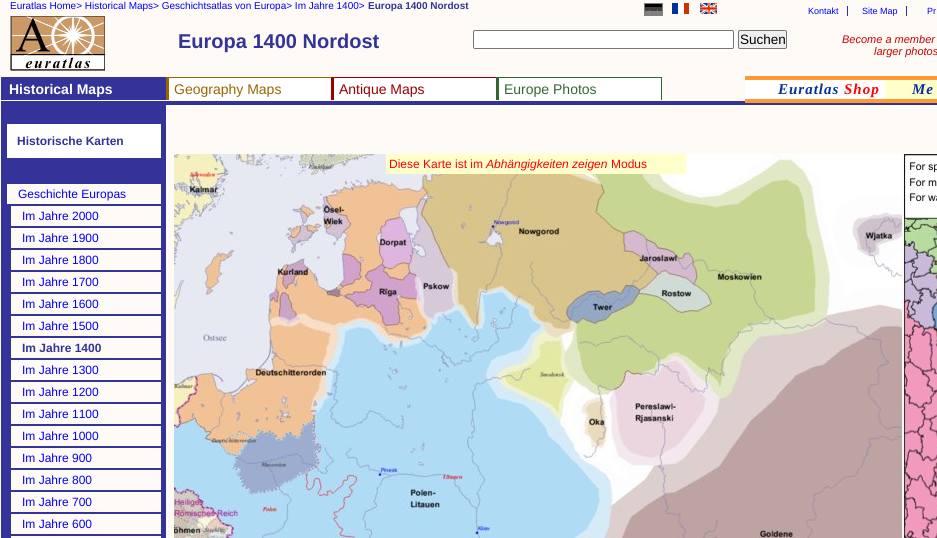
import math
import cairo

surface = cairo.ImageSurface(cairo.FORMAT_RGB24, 937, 538)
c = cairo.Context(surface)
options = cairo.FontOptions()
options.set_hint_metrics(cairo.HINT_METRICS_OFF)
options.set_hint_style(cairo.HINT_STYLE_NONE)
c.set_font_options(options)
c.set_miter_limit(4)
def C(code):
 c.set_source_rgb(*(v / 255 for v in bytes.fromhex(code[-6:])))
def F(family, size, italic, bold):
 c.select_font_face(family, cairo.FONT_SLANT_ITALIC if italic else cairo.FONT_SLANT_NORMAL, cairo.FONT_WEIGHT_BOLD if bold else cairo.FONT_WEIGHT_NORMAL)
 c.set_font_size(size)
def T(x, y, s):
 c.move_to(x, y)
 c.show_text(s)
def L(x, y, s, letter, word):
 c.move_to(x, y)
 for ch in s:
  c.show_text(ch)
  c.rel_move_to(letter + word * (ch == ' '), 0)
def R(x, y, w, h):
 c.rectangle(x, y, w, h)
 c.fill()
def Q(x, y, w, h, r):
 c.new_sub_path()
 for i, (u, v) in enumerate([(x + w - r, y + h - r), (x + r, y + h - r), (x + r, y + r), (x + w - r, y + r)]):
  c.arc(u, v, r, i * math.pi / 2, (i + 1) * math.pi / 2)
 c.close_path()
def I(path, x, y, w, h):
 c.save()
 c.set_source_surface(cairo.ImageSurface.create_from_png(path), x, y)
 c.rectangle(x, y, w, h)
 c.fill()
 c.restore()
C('fefaf5')
c.paint()
F('Liberation Sans',10,0,0)
C('0000ff')
T(10,9,'Euratlas Home> Historical Maps> Geschichtsatlas von Europa> Im Jahre 1400>')
F('Liberation Sans',10,0,1)
C('333399')
T(368,9,'Europa 1400 Nordost')
c.rectangle(644.5,3.5,18,12)
C('808080')
c.set_line_width(1)
c.stroke()
I('1.png',645,4,17,11)
I('2.png',672,3,17,11)
I('3.png',700,3,17,11)
C('333399')
R(847,6,1,10)
F('Liberation Sans',9,0,0)
C('0000ff')
T(808,14,'Kontakt')
C('333399')
R(906,6,1,10)
C('0000ff')
T(862,14,'Site Map')
T(927,14,'Pr')
I('4.png',10,16,95,55)
F('Liberation Sans',20,0,1)
C('333399')
T(178,48,'Europa 1400 Nordost')
C('ffffff')
Q(473.5,30.5,260,18,1.5)
c.fill_preserve()
C('767676')
c.stroke()
C('efefef')
Q(738.5,30.5,48,18,1.5)
c.fill_preserve()
C('767676')
c.stroke()
F('Liberation Sans',13.5,0,0)
C('000000')
T(740,44,'Suchen')
F('Liberation Sans',11,1,0)
C('cc0000')
T(842,43,'Become a member')
T(874,55,'larger photos')
C('333399')
R(1,77,165,23)
F('Liberation Sans',14,0,1)
C('ffffff')
T(9,94,'Historical Maps')
R(169,78,162,22)
C('996600')
R(166,77,165,1)
R(166,77,3,23)
F('Liberation Sans',14,0,0)
T(174,94,'Geography Maps')
C('ffffff')
R(334,78,162,22)
C('990000')
R(331,77,165,1)
R(331,77,3,23)
T(339,94,'Antique Maps')
C('ffffff')
R(499,78,162,22)
C('336633')
R(496,77,166,1)
R(661,77,1,23)
R(496,77,3,23)
T(504,94,'Europe Photos')
C('ffffff')
R(745,80,140,19)
C('ff9933')
R(745,76,192,4)
C('333399')
R(1,101,936,4)
C('ff9933')
R(745,99,192,4)
F('Liberation Serif',15,1,1)
C('003399')
L(778,94,'Euratlas',1,0)
C('ff0000')
L(844,94,'Shop',1,0)
C('ffffcc')
R(885,80,52,19)
C('003399')
L(912,94,'Me',1,0)
C('333399')
R(1,105,165,433)
C('ffffff')
R(7,124,154,34)
F('Liberation Sans',12,0,1)
C('333399')
T(17,145,'Historische Karten')
C('fefaf5')
R(7,184,154,20)
F('Liberation Sans',12,0,0)
C('0000ff')
T(18,198,'Geschichte Europas')
C('fefaf5')
R(11,206,150,20)
C('0000ff')
T(22,220,'Im Jahre 2000')
C('fefaf5')
R(11,228,150,20)
C('0000ff')
T(22,242,'Im Jahre 1900')
C('fefaf5')
R(11,250,150,20)
C('0000ff')
T(22,264,'Im Jahre 1800')
C('fefaf5')
R(11,272,150,20)
C('0000ff')
T(22,286,'Im Jahre 1700')
C('fefaf5')
R(11,294,150,20)
C('0000ff')
T(22,308,'Im Jahre 1600')
C('fefaf5')
R(11,316,150,20)
C('0000ff')
T(22,330,'Im Jahre 1500')
C('fefaf5')
R(11,338,150,20)
F('Liberation Sans',12,0,1)
C('333399')
T(22,352,'Im Jahre 1400')
C('fefaf5')
R(11,360,150,20)
F('Liberation Sans',12,0,0)
C('0000ff')
T(22,374,'Im Jahre 1300')
C('fefaf5')
R(11,382,150,20)
C('0000ff')
T(22,396,'Im Jahre 1200')
C('fefaf5')
R(11,404,150,20)
C('0000ff')
T(22,418,'Im Jahre 1100')
C('fefaf5')
R(11,426,150,20)
C('0000ff')
T(22,440,'Im Jahre 1000')
C('fefaf5')
R(11,448,150,20)
C('0000ff')
T(22,462,'Im Jahre 900')
C('fefaf5')
R(11,470,150,20)
C('0000ff')
T(22,484,'Im Jahre 800')
C('fefaf5')
R(11,492,150,20)
C('0000ff')
T(22,506,'Im Jahre 700')
C('fefaf5')
R(11,514,150,20)
C('0000ff')
T(22,528,'Im Jahre 600')
C('fefaf5')
R(7,536,154,2)
C('333399')
R(7,536,4,2)
I('5.png',174,154,728,384)
I('6.png',904,154,33,384)
C('ffffcc')
R(386,154,300,20)
C('ff0000')
T(389,168,'Diese Karte ist im')
F('Liberation Sans',12,1,0)
T(486,168,'Abhängigkeiten zeigen')
F('Liberation Sans',12,0,0)
T(611,168,'Modus')
surface.write_to_png('o.png')
